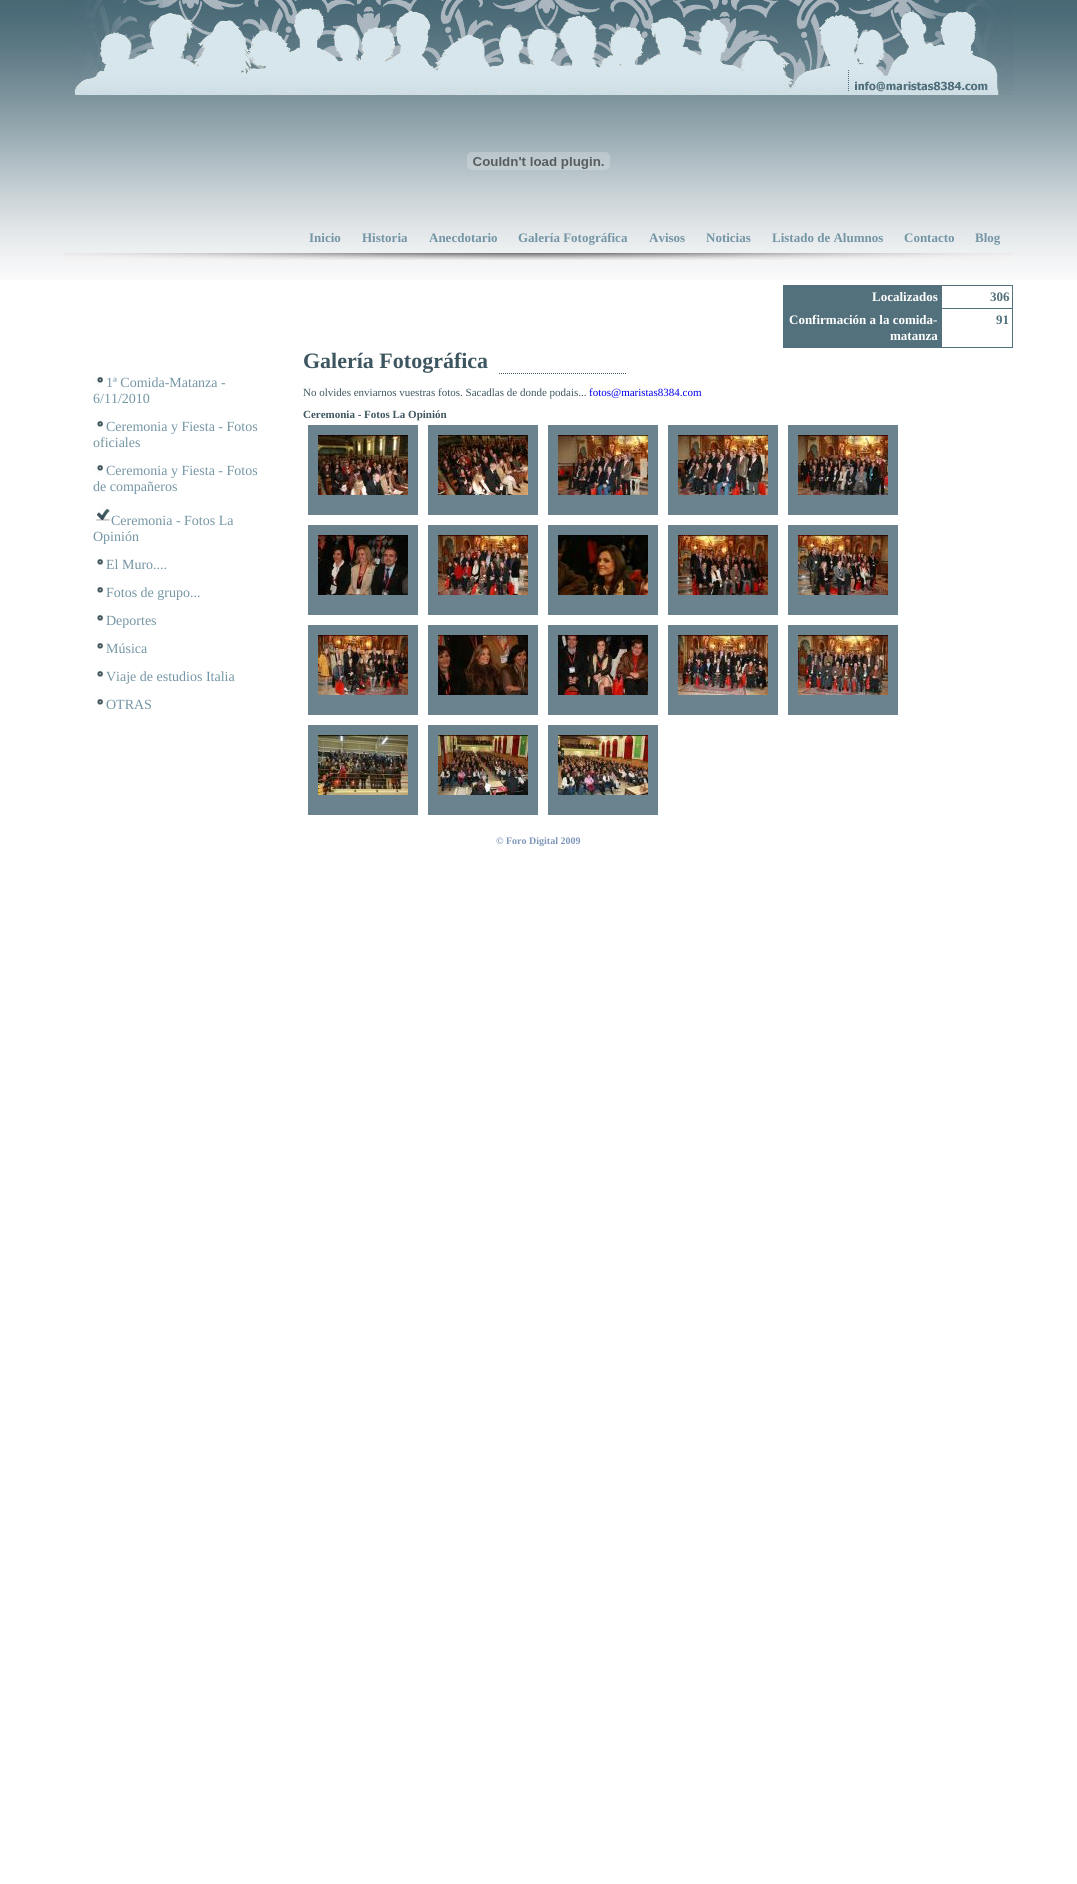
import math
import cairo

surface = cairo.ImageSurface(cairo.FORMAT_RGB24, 1077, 1884)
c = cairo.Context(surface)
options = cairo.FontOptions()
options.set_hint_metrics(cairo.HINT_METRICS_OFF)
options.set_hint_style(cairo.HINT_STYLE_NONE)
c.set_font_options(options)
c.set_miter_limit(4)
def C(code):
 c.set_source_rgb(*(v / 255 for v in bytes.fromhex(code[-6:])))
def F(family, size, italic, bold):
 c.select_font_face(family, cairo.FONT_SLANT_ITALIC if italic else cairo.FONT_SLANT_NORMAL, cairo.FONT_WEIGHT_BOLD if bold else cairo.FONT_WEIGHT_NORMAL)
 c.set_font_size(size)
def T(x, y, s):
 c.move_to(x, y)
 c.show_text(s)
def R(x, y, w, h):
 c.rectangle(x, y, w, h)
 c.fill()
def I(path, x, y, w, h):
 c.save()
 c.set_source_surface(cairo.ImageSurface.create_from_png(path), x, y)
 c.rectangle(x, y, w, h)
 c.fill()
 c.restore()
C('ffffff')
c.paint()
I('1.png',0,0,1077,280)
I('2.png',71,0,943,95)
I('3.png',467,152,143,18)
I('4.png',63,253,951,7)
F('Liberation Serif',13,0,1)
C('7495a4')
T(309,242,'Inicio')
T(362,242,'Historia')
T(429,242,'Anecdotario')
T(518,242,'Galería Fotográfica')
T(649,242,'Avisos')
T(706,242,'Noticias')
T(772,242,'Listado de Alumnos')
T(904,242,'Contacto')
T(975,242,'Blog')
C('53717c')
R(784,286,157,22)
R(941,285,72,1)
R(941,308,72,1)
R(1012,308,1,40)
R(941,347,72,1)
R(941,308,1,40)
R(783,308,159,1)
R(941,285,1,24)
R(783,285,159,1)
R(783,347,159,1)
R(783,308,1,40)
R(783,285,1,24)
C('ffffff')
T(872,301,'Localizados')
C('53717c')
R(1012,285,1,24)
T(990,301,'306')
R(784,309,157,38)
C('ffffff')
T(789,324,'Confirmación a la comida-')
T(890,340,'matanza')
C('53717c')
T(996,324,'91')
I('5.png',93,374,11,13)
F('Liberation Serif',14,0,0)
C('7495a4')
T(106,387,'1ª Comida-Matanza -')
T(93,403,'6/11/2010')
I('5.png',93,418,11,13)
T(106,431,'Ceremonia y Fiesta - Fotos')
T(93,447,'oficiales')
I('5.png',93,462,11,13)
T(106,475,'Ceremonia y Fiesta - Fotos')
T(93,491,'de compañeros')
I('6.png',93,505,17,16)
T(111,525,'Ceremonia - Fotos La')
T(93,541,'Opinión')
I('5.png',93,556,11,13)
T(106,569,'El Muro....')
I('5.png',93,584,11,13)
T(106,597,'Fotos de grupo...')
I('5.png',93,612,11,13)
T(106,625,'Deportes')
I('5.png',93,640,11,13)
T(106,653,'Música')
I('5.png',93,668,11,13)
T(106,681,'Viaje de estudios Italia')
I('5.png',93,696,11,13)
T(106,709,'OTRAS')
F('Liberation Serif',22,0,1)
C('3e5660')
T(303,368,'Galería Fotográfica')
c.new_path()
c.move_to(499,373.5)
c.line_to(626,373.5)
c.set_line_width(1)
c.set_dash([1,1])
c.stroke()
F('Liberation Serif',11,0,0)
T(303,396,'No olvides enviarnos vuestras fotos. Sacadlas de donde podais...')
C('0000ee')
T(589,396,'fotos@maristas8384.com')
F('Liberation Serif',11,0,1)
C('3e5660')
T(303,418,'Ceremonia - Fotos La Opinión')
C('6b838f')
R(308,425,110,90)
I('7.png',318,435,90,60)
R(428,425,110,90)
I('8.png',438,435,90,60)
R(548,425,110,90)
I('9.png',558,435,90,60)
R(668,425,110,90)
I('10.png',678,435,90,60)
R(788,425,110,90)
I('11.png',798,435,90,60)
R(308,525,110,90)
I('12.png',318,535,90,60)
R(428,525,110,90)
I('13.png',438,535,90,60)
R(548,525,110,90)
I('14.png',558,535,90,60)
R(668,525,110,90)
I('15.png',678,535,90,60)
R(788,525,110,90)
I('16.png',798,535,90,60)
R(308,625,110,90)
I('17.png',318,635,90,60)
R(428,625,110,90)
I('18.png',438,635,90,60)
R(548,625,110,90)
I('19.png',558,635,90,60)
R(668,625,110,90)
I('20.png',678,635,90,60)
R(788,625,110,90)
I('21.png',798,635,90,60)
R(308,725,110,90)
I('22.png',318,735,90,60)
R(428,725,110,90)
I('23.png',438,735,90,60)
R(548,725,110,90)
I('24.png',558,735,90,60)
F('Liberation Serif',10,0,1)
C('7f97b9')
T(496,844,'© Foro Digital 2009')
surface.write_to_png('o.png')
